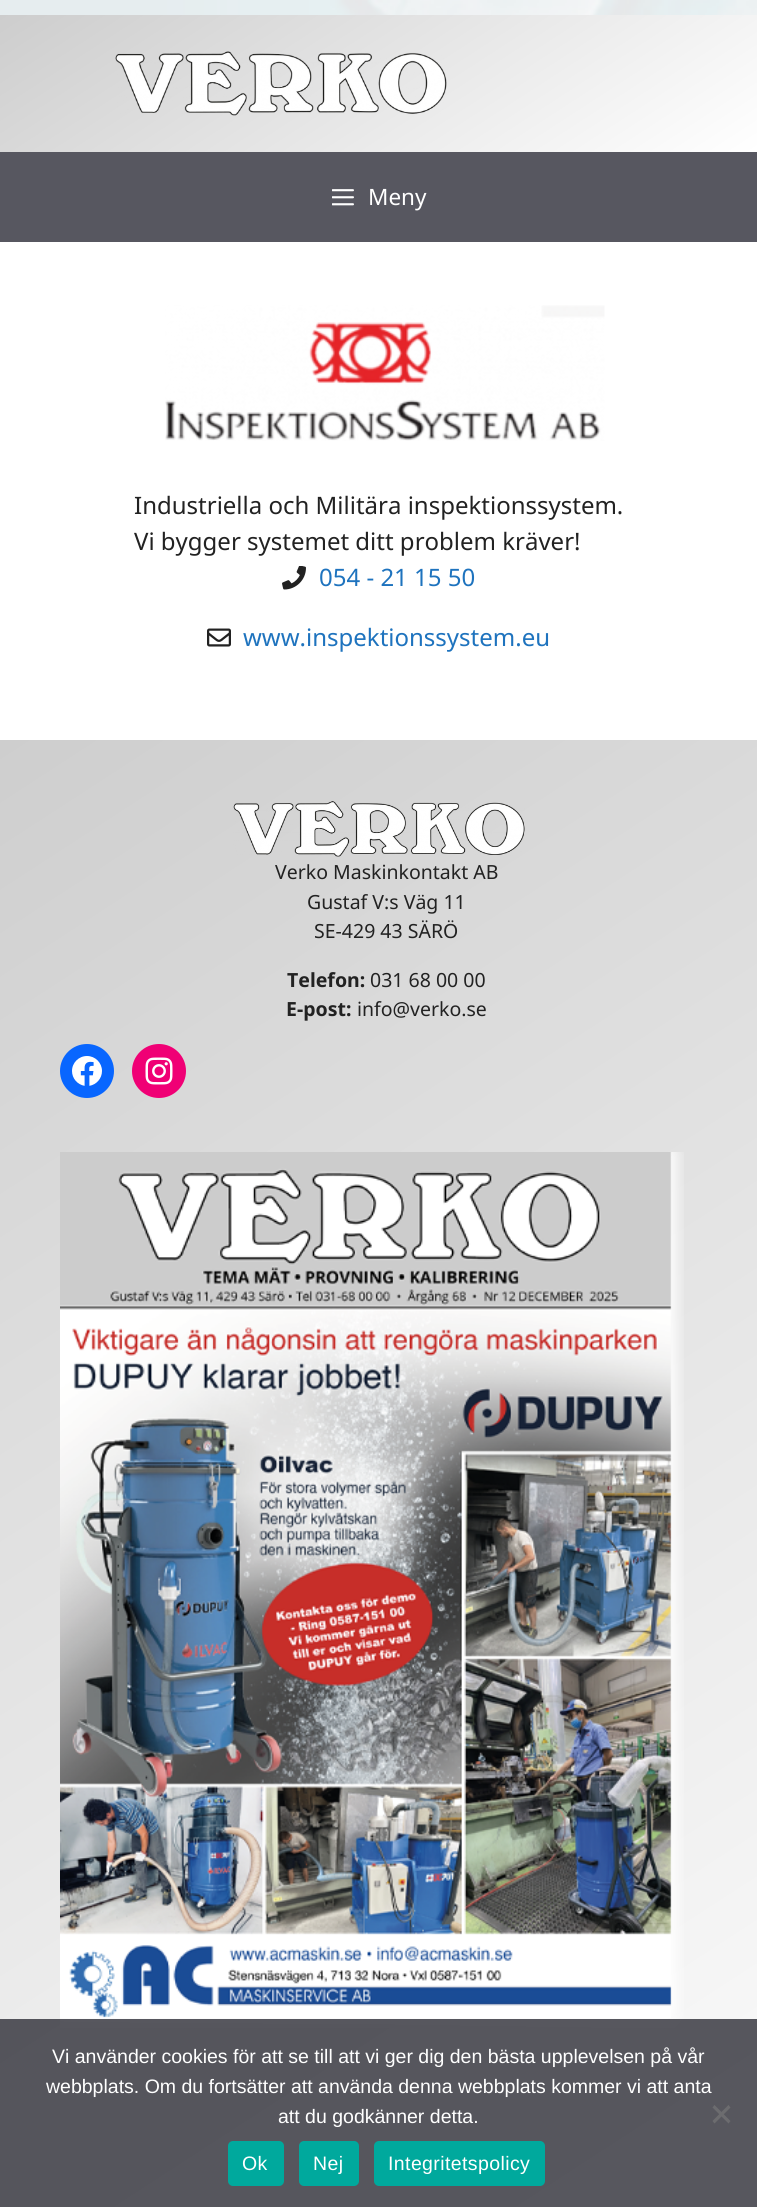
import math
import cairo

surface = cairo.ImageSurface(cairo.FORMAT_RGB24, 757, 2207)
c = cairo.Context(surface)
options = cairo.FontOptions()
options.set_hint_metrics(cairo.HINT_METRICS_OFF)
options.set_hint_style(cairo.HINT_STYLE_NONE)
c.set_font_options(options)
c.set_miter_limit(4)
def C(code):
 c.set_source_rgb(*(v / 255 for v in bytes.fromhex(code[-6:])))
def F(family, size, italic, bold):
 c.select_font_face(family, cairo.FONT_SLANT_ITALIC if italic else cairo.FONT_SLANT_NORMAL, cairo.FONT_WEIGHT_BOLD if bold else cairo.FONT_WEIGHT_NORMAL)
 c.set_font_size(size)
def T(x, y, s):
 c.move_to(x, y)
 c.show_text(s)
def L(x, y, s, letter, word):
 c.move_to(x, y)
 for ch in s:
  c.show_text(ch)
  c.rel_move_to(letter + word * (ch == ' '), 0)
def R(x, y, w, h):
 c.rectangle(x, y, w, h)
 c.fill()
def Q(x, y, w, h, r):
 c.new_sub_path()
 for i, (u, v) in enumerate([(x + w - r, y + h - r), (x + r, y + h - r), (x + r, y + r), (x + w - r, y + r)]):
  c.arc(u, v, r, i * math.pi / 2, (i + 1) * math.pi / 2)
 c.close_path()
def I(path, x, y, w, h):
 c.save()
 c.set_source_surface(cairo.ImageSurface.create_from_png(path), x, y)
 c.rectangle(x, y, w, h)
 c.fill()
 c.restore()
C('ffffff')
c.paint()
I('1.png',0,0,757,15)
gradient = cairo.LinearGradient(235,-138,522,304)
gradient.add_color_stop_rgba(0,0.804,0.804,0.804,1)
gradient.add_color_stop_rgba(1,1,1,1,1)
c.set_source(gradient)
R(0,15,757,137)
I('2.png',115,51,332,65)
C('575760')
R(0,152,757,90)
I('3.png',332,189,22,17)
F('Noto Sans',22.5,0,0)
C('ffffff')
T(368,205,'Meny')
I('4.png',165,305,440,136)
F('Noto Sans',24,0,0)
C('222222')
T(134,514,'Industriella och Militära inspektionssystem.')
T(134,550,'Vi bygger systemet ditt problem kräver!')
I('5.png',282,566,24,24)
C('1e73be')
T(319,586,'054 - 21 15 50')
I('6.png',207,628,24,19)
T(243,646,'www.inspektionssystem.eu')
gradient = cairo.LinearGradient(-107,809,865,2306)
gradient.add_color_stop_rgba(0,0.808,0.808,0.808,1)
gradient.add_color_stop_rgba(1,1,1,1,1)
c.set_source(gradient)
R(0,740,757,1467)
I('7.png',233,801,292,56)
F('Noto Sans',19.5,0,0)
C('222222')
T(275,879,'Verko Maskinkontakt AB')
T(307,909,'Gustaf V:s Väg 11')
T(314,938,'SE-429 43 SÄRÖ')
F('Noto Sans',19.5,0,1)
T(287,987,'Telefon:')
F('Noto Sans',19.5,0,0)
T(370,987,'031 68 00 00')
F('Noto Sans',19.5,0,1)
T(286,1016,'E-post:')
F('Noto Sans',19.5,0,0)
T(357,1016,'info@verko.se')
C('0866ff')
c.new_path()
c.arc(87,1071,27,0,2 * math.pi)
c.fill()
I('8.png',72,1056,30,30)
C('f00075')
c.arc(159,1071,27,0,2 * math.pi)
c.fill()
I('9.png',145,1057,28,28)
I('10.png',60,1152,624,876)
c.set_source_rgba(0.196,0.196,0.227,0.81)
R(0,2019,757,188)
F('Liberation Sans',19.5,0,0)
C('ffffff')
T(52,2063,'Vi använder cookies för att se till att vi ger dig den bästa upplevelsen på vår')
T(46,2093,'webbplats. Om du fortsätter att använda denna webbplats kommer vi att anta')
T(278,2123,'att du godkänner detta.')
C('6c6c6f')
c.new_path()
c.move_to(728.5,2105)
c.line_to(730.5,2107.5)
c.line_to(714.5,2123.5)
c.line_to(712.5,2121)
c.close_path()
c.fill()
c.new_path()
c.move_to(712.5,2107.5)
c.line_to(714.5,2105)
c.line_to(730.5,2121)
c.line_to(728.5,2123.5)
c.close_path()
c.fill()
C('00a99d')
Q(228,2141,56,45,5)
c.fill()
C('ffffff')
L(242,2170,'Ok',.4,0)
C('00a99d')
Q(299,2141,60,45,5)
c.fill()
C('ffffff')
L(313,2170,'Nej',.4,0)
C('00a99d')
Q(374,2141,171,45,5)
c.fill()
C('ffffff')
L(388,2170,'Integritetspolicy',.4,0)
surface.write_to_png('o.png')
